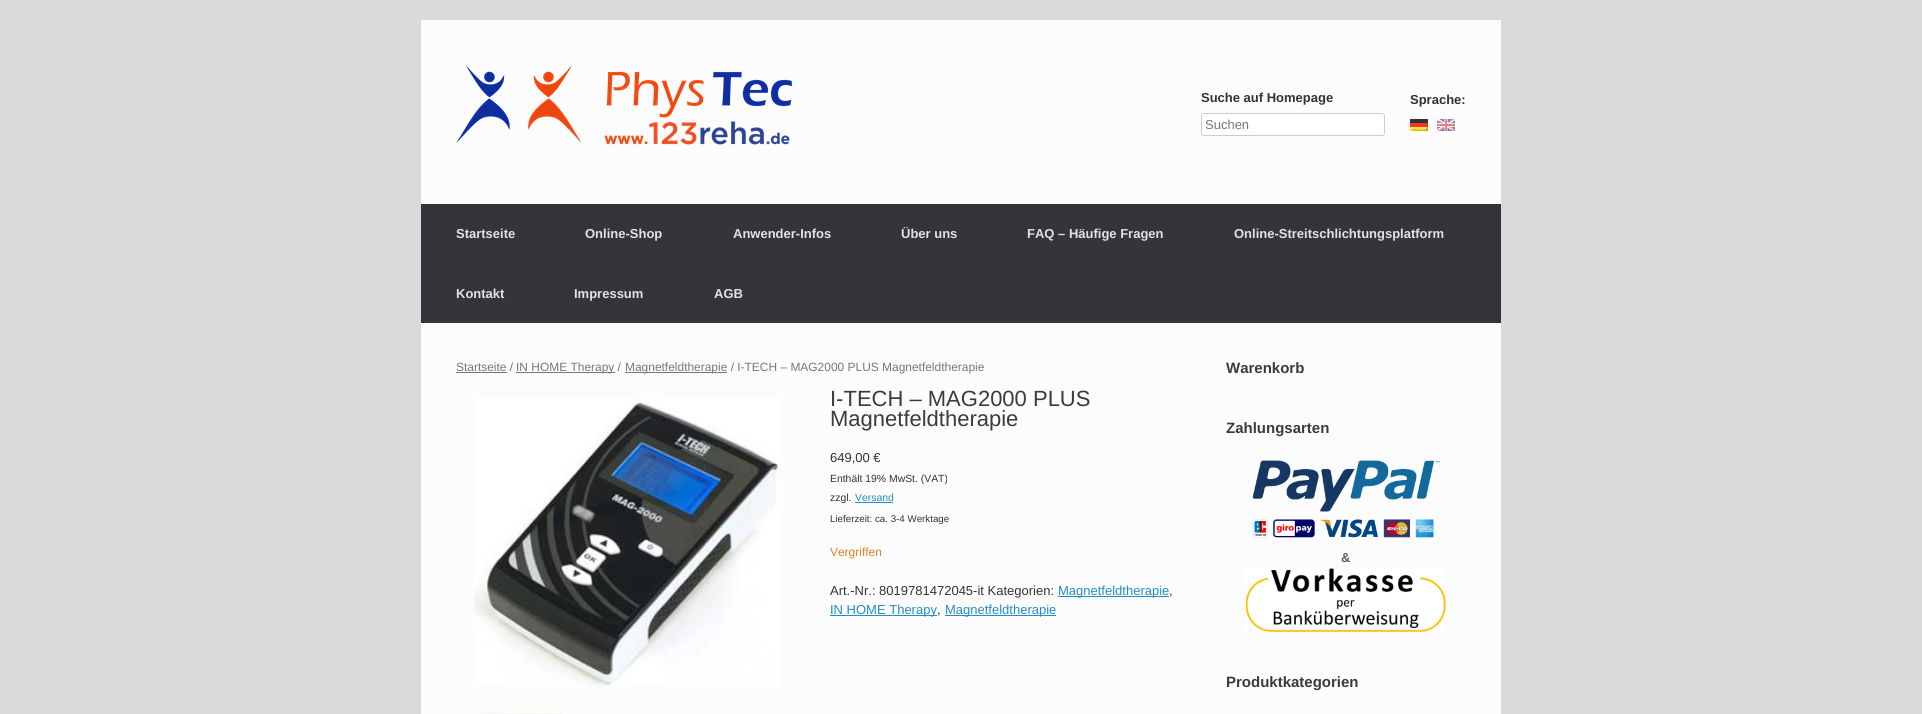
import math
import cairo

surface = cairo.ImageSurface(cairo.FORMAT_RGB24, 1922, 714)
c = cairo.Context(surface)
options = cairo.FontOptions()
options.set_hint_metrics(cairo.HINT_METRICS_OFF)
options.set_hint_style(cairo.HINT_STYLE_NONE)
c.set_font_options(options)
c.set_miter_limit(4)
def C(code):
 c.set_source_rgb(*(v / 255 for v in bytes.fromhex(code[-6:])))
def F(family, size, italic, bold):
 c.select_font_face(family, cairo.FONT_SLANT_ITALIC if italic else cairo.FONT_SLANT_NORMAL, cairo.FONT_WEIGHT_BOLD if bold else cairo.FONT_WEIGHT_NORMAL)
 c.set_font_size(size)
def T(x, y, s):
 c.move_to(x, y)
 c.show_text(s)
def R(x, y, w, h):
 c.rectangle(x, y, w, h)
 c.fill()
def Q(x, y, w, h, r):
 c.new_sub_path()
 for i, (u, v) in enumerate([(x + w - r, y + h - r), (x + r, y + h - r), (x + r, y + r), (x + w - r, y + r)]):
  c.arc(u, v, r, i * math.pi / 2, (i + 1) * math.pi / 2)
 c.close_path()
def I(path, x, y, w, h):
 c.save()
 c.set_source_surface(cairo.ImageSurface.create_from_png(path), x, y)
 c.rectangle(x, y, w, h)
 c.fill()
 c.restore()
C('dadada')
c.paint()
C('fcfcfc')
R(421,20,1080,184)
I('1.png',456,65,337,80)
F('Liberation Sans',13,0,1)
C('333333')
T(1201,102,'Suche auf Homepage')
C('ffffff')
Q(1201.5,113.5,183,22,2.5)
c.fill_preserve()
C('cccccc')
c.set_line_width(1)
c.stroke()
F('Liberation Sans',13,0,0)
C('777777')
T(1205,129,'Suchen')
F('Liberation Sans',13,0,1)
C('333333')
T(1410,104,'Sprache:')
I('2.png',1410,119,18,12)
I('3.png',1437,119,18,12)
C('343538')
R(421,204,1080,119)
C('e2e2e2')
T(456,238,'Startseite')
T(585,238,'Online-Shop')
T(733,238,'Anwender-Infos')
T(901,238,'Über uns')
T(1027,238,'FAQ – Häufige Fragen')
T(1234,238,'Online-Streitschlichtungsplatform')
T(456,298,'Kontakt')
T(574,298,'Impressum')
T(714,298,'AGB')
C('fcfcfc')
R(421,323,1080,391)
F('Liberation Sans',11.95,0,0)
C('777777')
T(456,371,'Startseite /')
R(456,372,51,1)
R(516,372,99,1)
T(516,371,'IN HOME Therapy /')
R(625,372,102,1)
T(625,371,'Magnetfeldtherapie / I-TECH – MAG2000 PLUS Magnetfeldtherapie')
I('4.png',474,398,307,288)
I('5.png',456,713,106,1)
F('Liberation Sans',22,0,0)
C('3b3b3b')
T(830,406,'I-TECH – MAG2000 PLUS')
T(830,426,'Magnetfeldtherapie')
F('Liberation Sans',13,0,0)
C('333333')
T(830,462,'649,00 €')
F('Liberation Sans',10.4,0,0)
T(830,482,'Enthält 19% MwSt. (VAT)')
T(830,501,'zzgl.')
C('248cc8')
T(855,501,'Versand')
R(855,502,38,1)
F('Liberation Sans',9.75,0,0)
C('333333')
T(830,522,'Lieferzeit: ca. 3-4 Werktage')
F('Liberation Sans',11.95,0,0)
C('e18223')
T(830,556,'Vergriffen')
F('Liberation Sans',13,0,0)
C('333333')
T(830,595,'Art.-Nr.: 8019781472045-it Kategorien:')
C('248cc8')
R(1058,596,111,1)
T(1058,595,'Magnetfeldtherapie')
C('333333')
T(1169,595,',')
C('248cc8')
R(830,615,107,1)
T(830,614,'IN HOME Therapy')
C('333333')
T(937,614,',')
C('248cc8')
R(945,615,111,1)
T(945,614,'Magnetfeldtherapie')
F('Liberation Sans',15,0,1)
C('3b3b3b')
T(1226,373,'Warenkorb')
T(1226,433,'Zahlungsarten')
I('6.png',1252,460,188,78)
F('Liberation Sans',13,0,1)
C('5e5e5e')
T(1341,562,'&')
I('7.png',1246,568,200,64)
F('Liberation Sans',15,0,1)
C('3b3b3b')
T(1226,687,'Produktkategorien')
surface.write_to_png('o.png')
